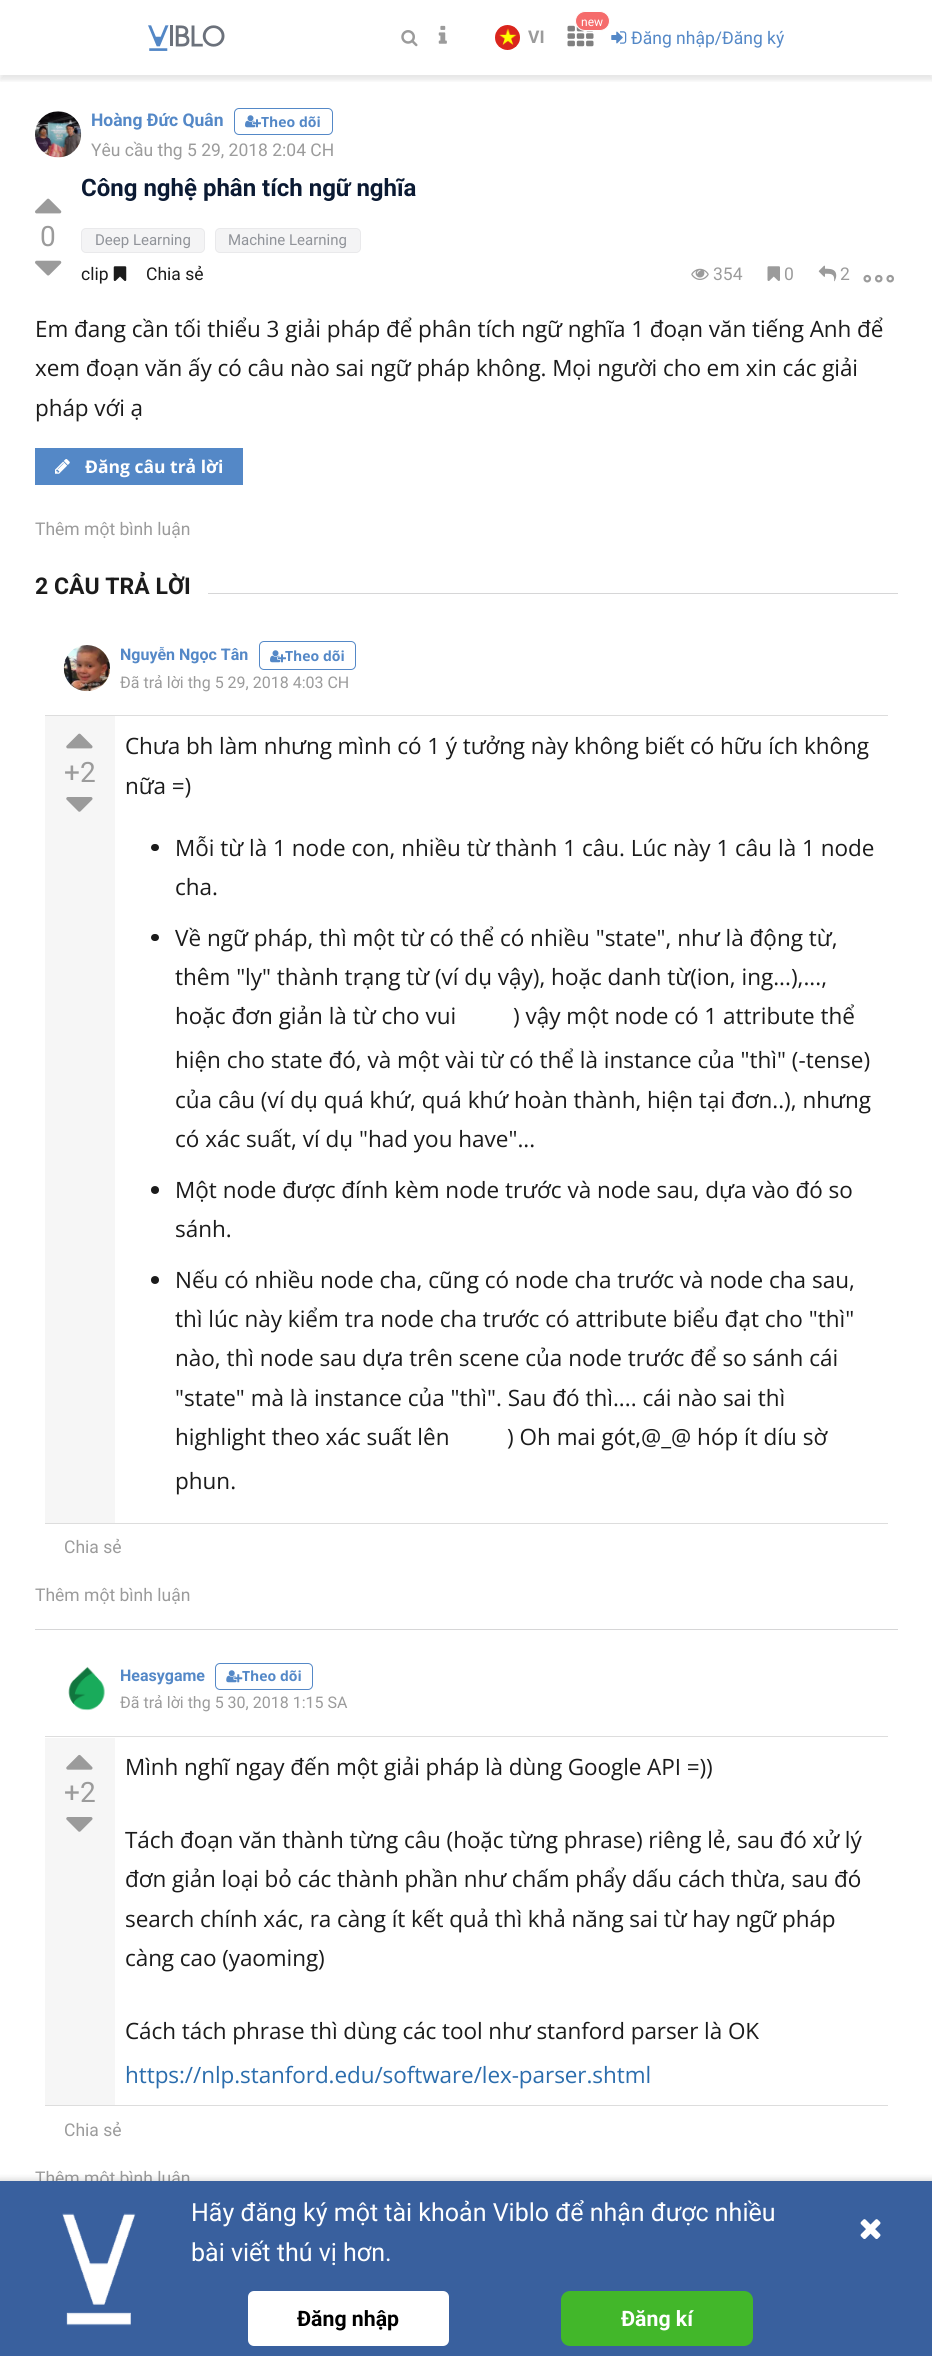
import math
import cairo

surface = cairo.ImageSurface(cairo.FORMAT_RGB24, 932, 2356)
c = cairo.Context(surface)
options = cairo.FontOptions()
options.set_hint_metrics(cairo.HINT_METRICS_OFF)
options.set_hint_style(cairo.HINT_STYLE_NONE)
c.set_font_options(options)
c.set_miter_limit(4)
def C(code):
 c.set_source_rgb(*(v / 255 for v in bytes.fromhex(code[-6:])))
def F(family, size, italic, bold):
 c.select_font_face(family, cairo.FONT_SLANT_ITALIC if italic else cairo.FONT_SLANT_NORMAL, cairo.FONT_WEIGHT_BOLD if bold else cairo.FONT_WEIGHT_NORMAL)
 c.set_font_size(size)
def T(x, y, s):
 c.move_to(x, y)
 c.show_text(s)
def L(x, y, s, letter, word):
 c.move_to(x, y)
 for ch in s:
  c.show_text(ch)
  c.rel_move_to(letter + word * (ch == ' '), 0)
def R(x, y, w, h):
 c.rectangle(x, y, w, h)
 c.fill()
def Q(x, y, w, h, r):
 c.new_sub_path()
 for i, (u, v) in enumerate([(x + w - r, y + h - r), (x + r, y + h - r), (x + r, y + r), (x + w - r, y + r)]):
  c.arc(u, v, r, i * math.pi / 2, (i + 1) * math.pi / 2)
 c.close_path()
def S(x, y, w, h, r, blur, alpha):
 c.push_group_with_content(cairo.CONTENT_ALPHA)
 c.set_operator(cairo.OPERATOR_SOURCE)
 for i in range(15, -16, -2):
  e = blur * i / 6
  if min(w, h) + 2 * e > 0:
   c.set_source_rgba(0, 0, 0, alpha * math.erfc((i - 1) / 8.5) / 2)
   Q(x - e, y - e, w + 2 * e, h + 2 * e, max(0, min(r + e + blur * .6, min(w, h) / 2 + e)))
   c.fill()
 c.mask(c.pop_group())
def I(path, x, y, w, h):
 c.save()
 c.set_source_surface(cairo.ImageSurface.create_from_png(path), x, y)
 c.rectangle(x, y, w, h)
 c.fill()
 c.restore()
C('ffffff')
c.paint()
c.save()
c.rectangle(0,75,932,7)
c.clip()
C('000000')
S(0,5,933,75,0,2.5,.1)
c.restore()
I('1.png',148,25,77,26)
I('2.png',401,30,17,17)
I('3.png',438,25,9,19)
I('4.png',567,25,27,22)
C('f56c6c')
Q(575.5,11.5,34,19,9.5)
c.fill_preserve()
C('ffffff')
c.set_line_width(1)
c.stroke()
F('Roboto',12,0,0)
T(581,26,'new')
I('5.png',495,25,25,25)
F('Roboto',17.5,0,1)
C('9b9b9b')
T(528,43,'VI')
I('6.png',611,31,16,13)
F('Roboto',17.5,0,0)
C('5488c7')
T(631,44,'Đăng nhập/Đăng ký')
I('7.png',35,111,47,47)
F('Roboto',17.5,0,1)
T(91,126,'Hoàng Đức Quân')
Q(234.5,108.5,98,26,4.5)
c.stroke()
I('8.png',245,115,16,13)
F('Open Sans',14,0,1)
T(261,127,'Theo dõi')
F('Roboto',17.5,0,0)
C('9b9b9b')
T(91,156,'Yêu cầu thg 5 29, 2018 2:04 CH')
I('9.png',35,198,27,16)
F('Roboto',28,0,0)
T(40,246,'0')
I('10.png',35,260,27,16)
F('Roboto',24,0,1)
C('0b1a33')
T(81,196,'Công nghệ phân tích ngữ nghĩa')
C('f4f4f5')
Q(81.5,228.5,123,24,4.5)
c.fill_preserve()
C('e9e9eb')
c.stroke()
F('Roboto',15,0,0)
C('909399')
T(95,245,'Deep Learning')
C('f4f4f5')
Q(215.5,228.5,145,24,4.5)
c.fill_preserve()
C('e9e9eb')
c.stroke()
C('909399')
T(228,245,'Machine Learning')
I('11.png',863,274,31,9)
F('Roboto',17.5,0,0)
C('1b1b1b')
T(81,280,'clip')
I('12.png',113,266,14,15)
T(146,280,'Chia sẻ')
I('13.png',691,268,18,12)
C('9b9b9b')
T(713,280,'354')
I('14.png',767,266,13,15)
T(784,280,'0')
I('15.png',818,265,19,17)
T(840,280,'2')
F('Open Sans',22.5,0,0)
C('1b1b1b')
L(35,337,'Em đang cần tối thiểu 3 giải pháp để phân tích ngữ nghĩa 1 đoạn văn tiếng Anh để',-.07,0)
L(35,376,'xem đoạn văn ấy có câu nào sai ngữ pháp không. Mọi người cho em xin các giải',-.07,0)
L(35,416,'pháp với ạ',-.07,0)
C('5488c7')
R(35,448,208,37)
I('16.png',55,459,15,15)
F('Open Sans',17.5,0,1)
C('ffffff')
T(85,473,'Đăng câu trả lời')
F('Roboto',17.5,0,0)
C('9b9b9b')
T(35,535,'Thêm một bình luận')
F('Roboto',23,0,1)
C('1b1b1b')
T(35,594,'2 CÂU TRẢ LỜI')
C('d6d6d7')
R(208,593,690,1)
R(35,1629,863,1)
I('17.png',63,645,47,47)
F('Roboto',16,0,1)
C('5488c7')
T(120,660,'Nguyễn Ngọc Tân')
Q(259.5,641.5,96,28,4.5)
c.stroke()
I('8.png',270,650,16,13)
F('Open Sans',14,0,1)
T(285,661,'Theo dõi')
F('Roboto',16,0,0)
C('9b9b9b')
T(120,688,'Đã trả lời thg 5 29, 2018 4:03 CH')
C('dddddd')
R(45,715,843,1)
R(45,1523,843,1)
C('f6f6f6')
R(45,716,70,807)
I('18.png',66,733,27,16)
F('Roboto',28,0,0)
C('9b9b9b')
T(64,782,'+2')
I('19.png',66,797,27,15)
F('Open Sans',22.5,0,0)
C('1b1b1b')
L(125,754,'Chưa bh làm nhưng mình có 1 ý tưởng này không biết có hữu ích không',-.07,0)
L(125,794,'nữa =)',-.07,0)
Q(151,844,8,7,3.5)
c.fill()
T(175,856,'Mỗi từ là 1 node con, nhiều từ thành 1 câu. Lúc này 1 câu là 1 node')
T(175,895,'cha.')
Q(151,934,8,7,3.5)
c.fill()
T(175,946,'Về ngữ pháp, thì một từ có thể có nhiều "state", như là động từ,')
T(175,985,'thêm "ly" thành trạng từ (ví dụ vậy), hoặc danh từ(ion, ing...),...,')
T(175,1024,'hoặc đơn giản là từ cho vui')
T(513,1024,') vậy một node có 1 attribute thể')
T(175,1068,'hiện cho state đó, và một vài từ có thể là instance của "thì" (-tense)')
T(175,1108,'của câu (ví dụ quá khứ, quá khứ hoàn thành, hiện tại đơn..), nhưng')
T(175,1147,'có xác suất, ví dụ "had you have"...')
c.new_path()
c.arc(155,1190,4,0,2 * math.pi)
c.fill()
T(175,1198,'Một node được đính kèm node trước và node sau, dựa vào đó so')
T(175,1237,'sánh.')
c.new_path()
c.arc(155,1280,4,0,2 * math.pi)
c.fill()
T(175,1288,'Nếu có nhiều node cha, cũng có node cha trước và node cha sau,')
T(175,1327,'thì lúc này kiểm tra node cha trước có attribute biểu đạt cho "thì"')
T(175,1366,'nào, thì node sau dựa trên scene của node trước để so sánh cái')
T(175,1406,'"state" mà là instance của "thì". Sau đó thì.... cái nào sai thì')
T(175,1445,'highlight theo xác suất lên')
T(507,1445,') Oh mai gót,@_@ hóp ít díu sờ')
T(175,1489,'phun.')
F('Roboto',17.5,0,0)
C('9b9b9b')
T(64,1553,'Chia sẻ')
T(35,1601,'Thêm một bình luận')
I('20.png',68,1666,37,45)
F('Roboto',16,0,1)
C('5488c7')
T(120,1681,'Heasygame')
Q(215.5,1663.5,97,26,4.5)
c.stroke()
I('21.png',226,1670,17,13)
F('Open Sans',14,0,1)
T(242,1681,'Theo dõi')
F('Roboto',16,0,0)
C('9b9b9b')
T(120,1708,'Đã trả lời thg 5 30, 2018 1:15 SA')
C('dddddd')
R(45,1736,843,1)
R(45,2105,843,1)
C('f6f6f6')
R(45,1738,70,367)
I('22.png',66,1754,27,16)
F('Roboto',28,0,0)
C('9b9b9b')
T(64,1802,'+2')
I('19.png',66,1817,27,15)
F('Open Sans',22.5,0,0)
C('1b1b1b')
L(125,1775,'Mình nghĩ ngay đến một giải pháp là dùng Google API =))',-.07,0)
L(125,1848,'Tách đoạn văn thành từng câu (hoặc từng phrase) riêng lẻ, sau đó xử lý',-.07,0)
L(125,1887,'đơn giản loại bỏ các thành phần như chấm phẩy dấu cách thừa, sau đó',-.07,0)
L(125,1927,'search chính xác, ra càng ít kết quả thì khả năng sai từ hay ngữ pháp',-.07,0)
L(125,1966,'càng cao (yaoming)',-.07,0)
L(125,2039,'Cách tách phrase thì dùng các tool như stanford parser là OK',-.07,0)
C('2b6dad')
L(125,2083,'https://nlp.stanford.edu/software/lex-parser.shtml',-.07,0)
F('Roboto',17.5,0,0)
C('9b9b9b')
T(64,2136,'Chia sẻ')
T(35,2184,'Thêm một bình luận')
C('000000')
S(-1,2179,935,177,0,3,.15)
C('39609e')
R(0,2181,932,175)
I('23.png',62,2213,74,113)
F('Roboto',25,0,0)
C('ffffff')
T(191,2221,'Hãy đăng ký một tài khoản Viblo để nhận được nhiều')
T(191,2261,'bài viết thú vị hơn.')
Q(248,2291,201,55,6)
c.fill()
F('Roboto',21.25,0,1)
C('000000')
T(297,2326,'Đăng nhập')
C('42b72a')
Q(561,2291,192,55,9)
c.fill()
C('ffffff')
T(621,2326,'Đăng kí')
I('24.png',860,2219,21,20)
surface.write_to_png('o.png')
